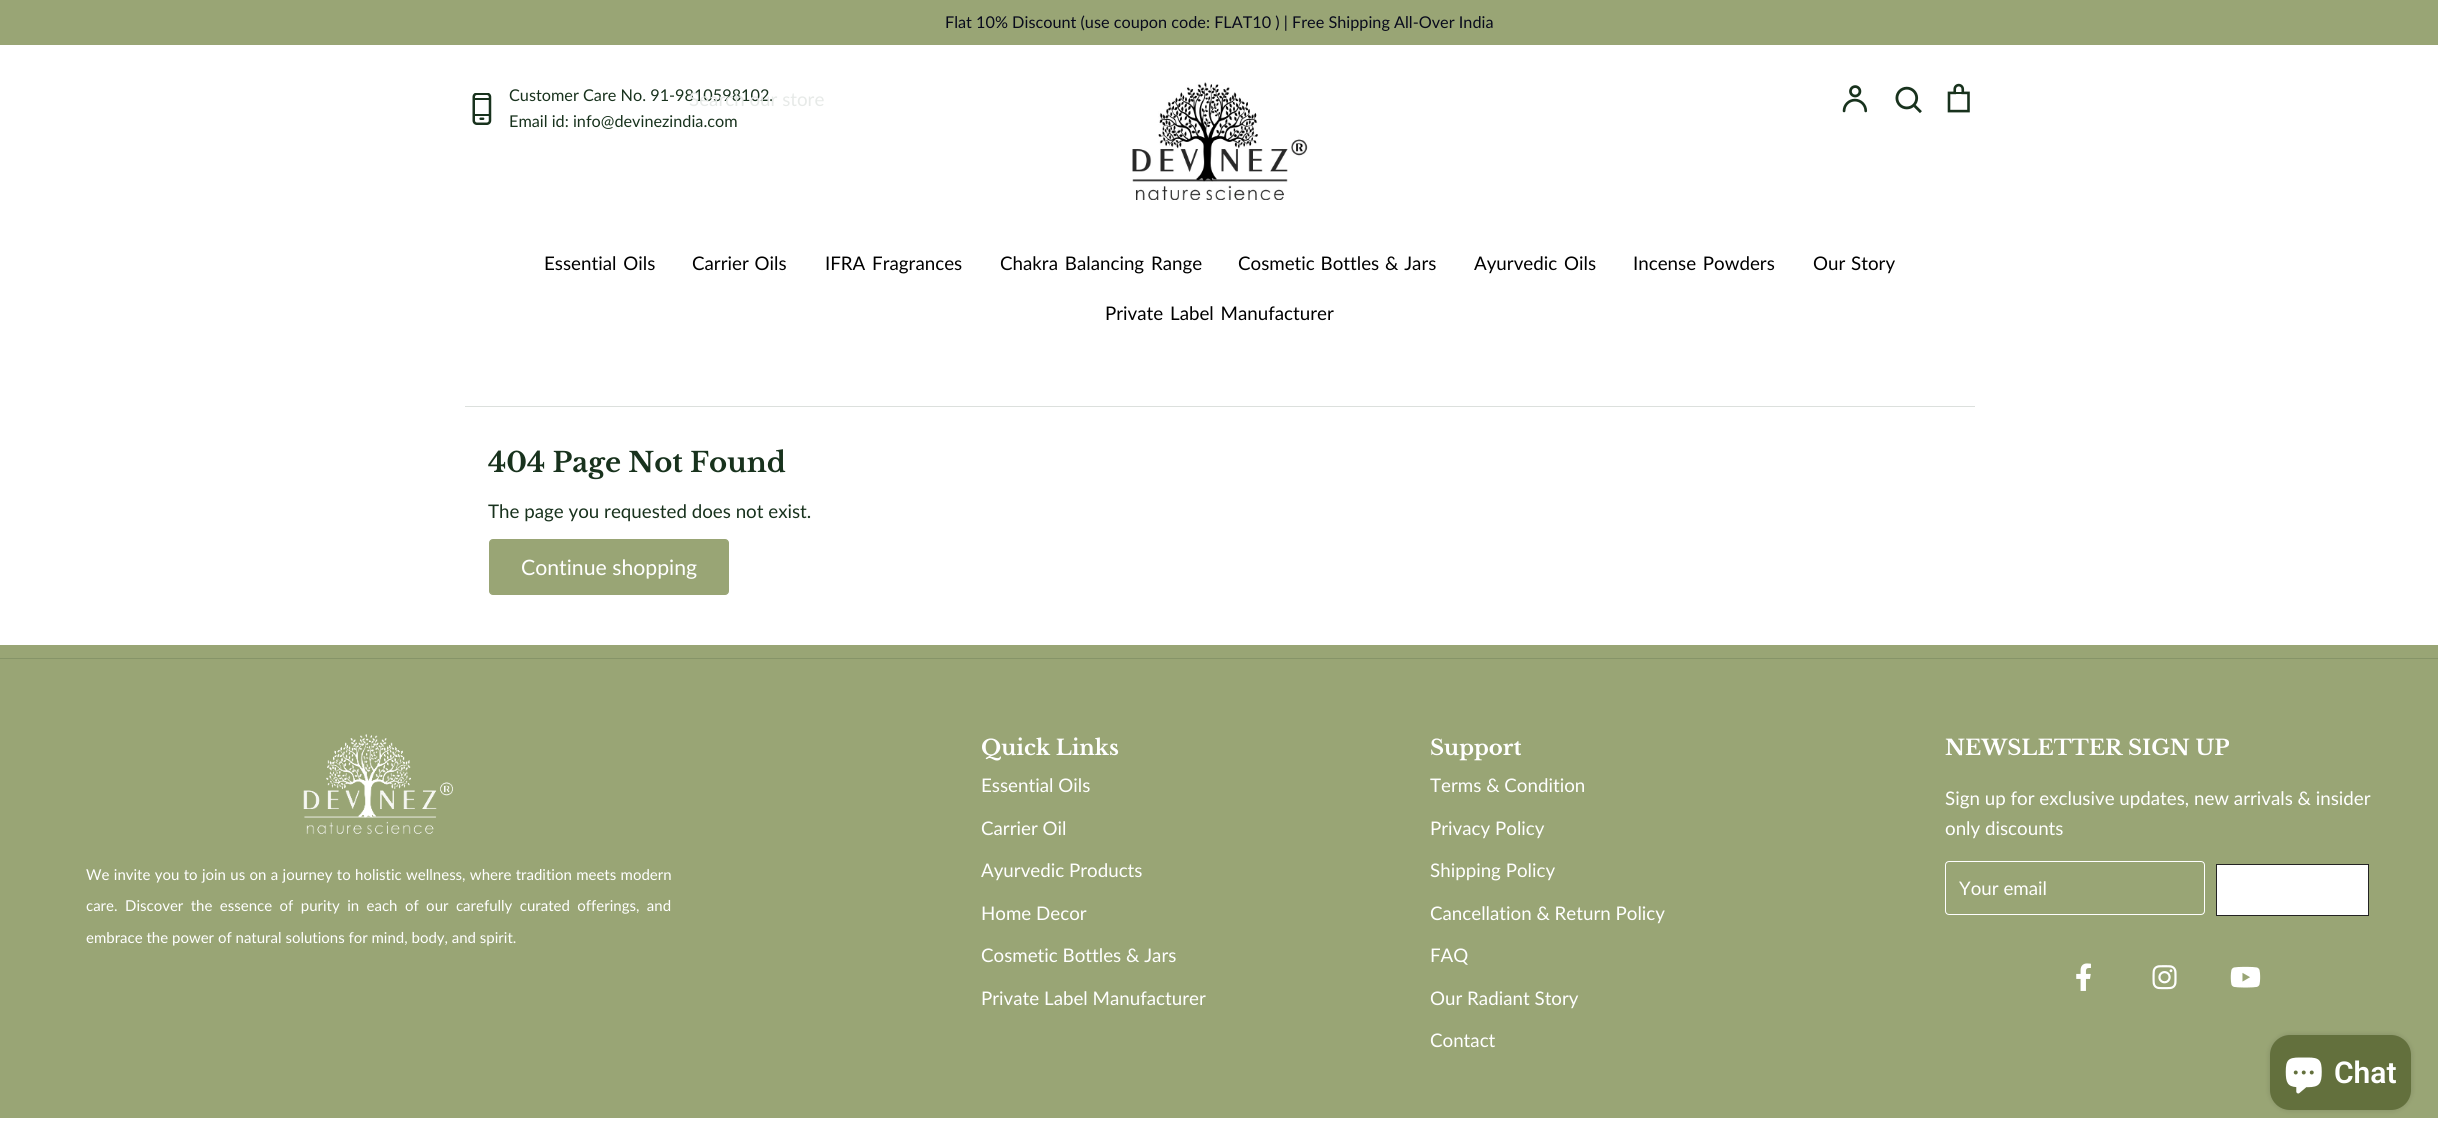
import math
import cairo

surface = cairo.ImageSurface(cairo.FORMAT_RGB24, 2438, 1136)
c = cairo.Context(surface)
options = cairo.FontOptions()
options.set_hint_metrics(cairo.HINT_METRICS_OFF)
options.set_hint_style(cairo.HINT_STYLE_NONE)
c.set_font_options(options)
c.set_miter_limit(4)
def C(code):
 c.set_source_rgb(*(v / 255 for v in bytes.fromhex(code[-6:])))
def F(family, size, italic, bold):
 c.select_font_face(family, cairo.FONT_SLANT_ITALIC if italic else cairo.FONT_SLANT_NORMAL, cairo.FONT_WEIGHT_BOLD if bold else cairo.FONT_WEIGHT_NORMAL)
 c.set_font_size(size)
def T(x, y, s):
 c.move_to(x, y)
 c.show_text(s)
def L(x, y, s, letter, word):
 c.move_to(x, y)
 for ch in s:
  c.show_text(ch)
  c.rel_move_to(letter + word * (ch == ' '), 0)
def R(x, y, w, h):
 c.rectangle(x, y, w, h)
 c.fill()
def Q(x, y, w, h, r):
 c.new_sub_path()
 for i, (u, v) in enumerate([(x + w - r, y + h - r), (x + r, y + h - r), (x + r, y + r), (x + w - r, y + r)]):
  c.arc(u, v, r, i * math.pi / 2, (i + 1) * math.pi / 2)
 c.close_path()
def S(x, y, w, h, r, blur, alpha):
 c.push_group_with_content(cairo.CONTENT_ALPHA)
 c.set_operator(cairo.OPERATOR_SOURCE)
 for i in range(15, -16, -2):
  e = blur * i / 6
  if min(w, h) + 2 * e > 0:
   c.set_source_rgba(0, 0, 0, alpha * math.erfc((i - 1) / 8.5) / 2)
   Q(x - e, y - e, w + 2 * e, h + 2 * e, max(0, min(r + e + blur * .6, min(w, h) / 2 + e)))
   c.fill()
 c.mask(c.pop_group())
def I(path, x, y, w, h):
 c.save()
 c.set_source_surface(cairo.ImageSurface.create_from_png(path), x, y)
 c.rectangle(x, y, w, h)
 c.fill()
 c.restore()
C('ffffff')
c.paint()
C('99a575')
R(0,0,2438,45)
F('Lato',16.25,0,0)
C('080a1c')
T(945,28,'Flat 10% Discount (use coupon code: FLAT10 ) | Free Shipping All-Over India')
I('1.png',472,93,20,32)
C('18321d')
T(509,101,'Customer Care No. 91-9810598102.')
T(509,127,'Email id: info@devinezindia.com')
I('2.png',1132,82,176,118)
F('Lato',18.75,0,0)
C('e7eae8')
T(689,106,'Search our store')
I('3.png',1895,86,27,28)
I('4.png',1842,85,26,28)
I('5.png',1947,83,23,30)
C('dce0dd')
R(465,406,1510,1)
C('000000')
L(544,270,'Essential Oils',0,2)
L(692,270,'Carrier Oils',0,1)
L(825,270,'IFRA Fragrances',0,2)
L(1000,270,'Chakra Balancing Range',0,2)
L(1238,270,'Cosmetic Bottles & Jars',0,1)
L(1474,270,'Ayurvedic Oils',0,2)
L(1633,270,'Incense Powders',0,2)
L(1813,270,'Our Story',0,1)
L(1105,320,'Private Label Manufacturer',0,2)
F('Libre Baskerville',27.5,0,1)
C('18321d')
T(488,472,'404 Page Not Found')
F('Lato',18.75,0,0)
T(488,518,'The page you requested does not exist.')
C('99a575')
Q(489.5,539.5,239,55,3.5)
c.fill_preserve()
c.set_line_width(1)
c.stroke()
F('Lato',21.25,0,0)
C('ffffff')
T(521,575,'Continue shopping')
C('99a575')
R(0,645,2438,473)
C('869468')
R(0,658,2438,1)
F('Libre Baskerville',21.25,0,1)
C('ffffff')
T(981,755,'Quick Links')
F('Lato',18.75,0,0)
T(981,792,'Essential Oils')
T(981,835,'Carrier Oil')
T(981,877,'Ayurvedic Products')
T(981,920,'Home Decor')
T(981,962,'Cosmetic Bottles & Jars')
T(981,1005,'Private Label Manufacturer')
F('Libre Baskerville',21.25,0,1)
T(1430,755,'Support')
F('Lato',18.75,0,0)
T(1430,792,'Terms & Condition')
T(1430,835,'Privacy Policy')
T(1430,877,'Shipping Policy')
T(1430,920,'Cancellation & Return Policy')
T(1430,962,'FAQ')
T(1430,1005,'Our Radiant Story')
T(1430,1047,'Contact')
F('Libre Baskerville',21.25,0,1)
T(1945,755,'NEWSLETTER SIGN UP')
F('Lato',18.75,0,0)
T(1945,805,'Sign up for exclusive updates, new arrivals & insider')
T(1945,835,'only discounts')
Q(1945.5,861.5,259,53,3.5)
c.stroke()
T(1959,895,'Your email')
c.rectangle(2216.5,864.5,152,51)
c.fill_preserve()
C('232323')
c.stroke()
I('6.png',2076,963,15,28)
I('7.png',2152,965,25,25)
I('8.png',2230,966,31,22)
I('9.png',303,734,150,100)
F('Lato',15,0,0)
C('ffffff')
L(86,880,'We invite you to join us on a journey to holistic wellness, where tradition meets modern',0,.5)
L(86,911,'care. Discover the essence of purity in each of our carefully curated offerings, and',0,3.6)
T(86,943,'embrace the power of natural solutions for mind, body, and spirit.')
C('000000')
S(2270,1035,141,75,20,3,.15)
C('63703d')
Q(2270,1035,141,75,20)
c.fill()
I('10.png',2285,1057,37,37)
F('Roboto SemiBold',30,0,0)
C('ffffff')
T(2334,1083,'Chat')
surface.write_to_png('o.png')
